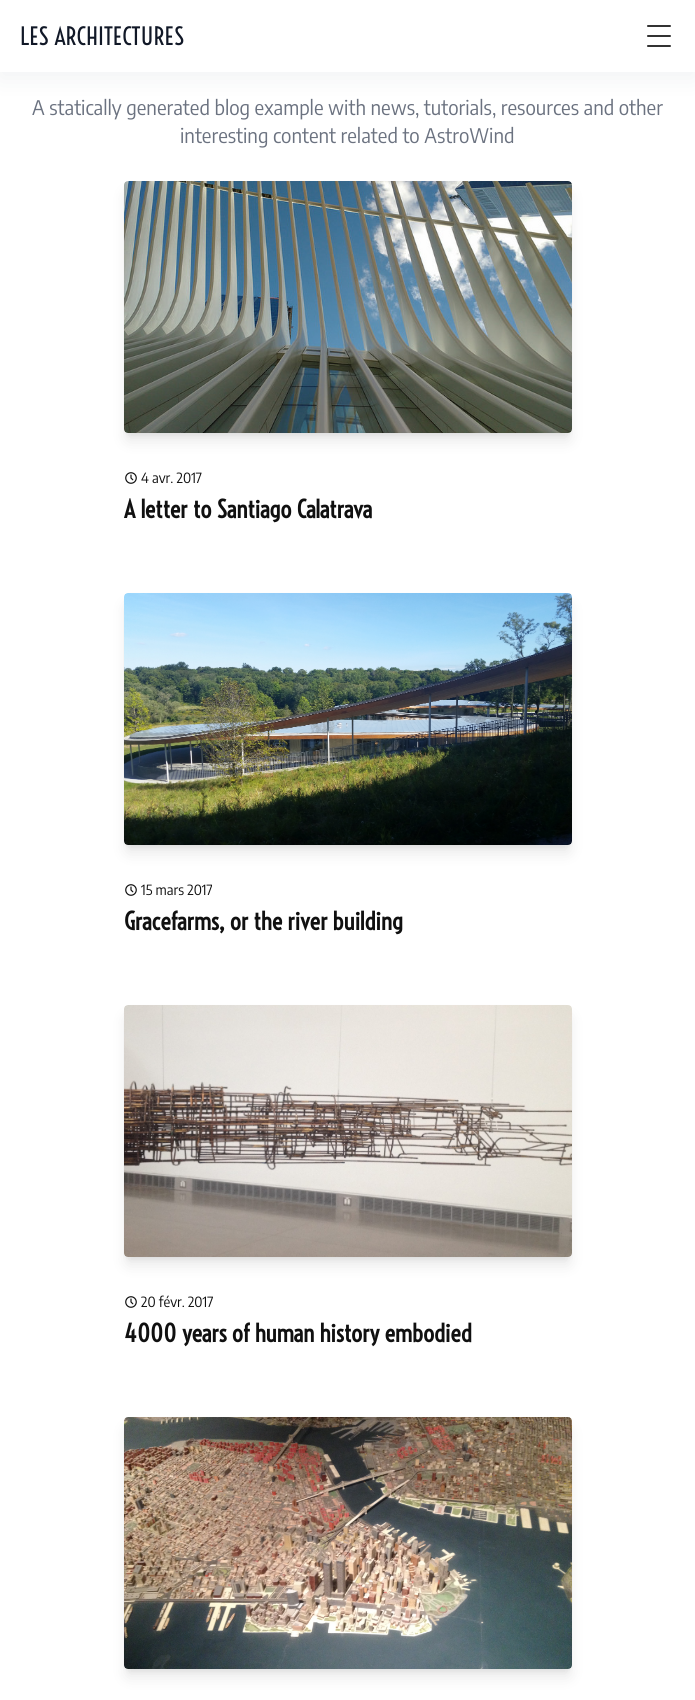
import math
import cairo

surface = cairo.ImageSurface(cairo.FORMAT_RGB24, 695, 1700)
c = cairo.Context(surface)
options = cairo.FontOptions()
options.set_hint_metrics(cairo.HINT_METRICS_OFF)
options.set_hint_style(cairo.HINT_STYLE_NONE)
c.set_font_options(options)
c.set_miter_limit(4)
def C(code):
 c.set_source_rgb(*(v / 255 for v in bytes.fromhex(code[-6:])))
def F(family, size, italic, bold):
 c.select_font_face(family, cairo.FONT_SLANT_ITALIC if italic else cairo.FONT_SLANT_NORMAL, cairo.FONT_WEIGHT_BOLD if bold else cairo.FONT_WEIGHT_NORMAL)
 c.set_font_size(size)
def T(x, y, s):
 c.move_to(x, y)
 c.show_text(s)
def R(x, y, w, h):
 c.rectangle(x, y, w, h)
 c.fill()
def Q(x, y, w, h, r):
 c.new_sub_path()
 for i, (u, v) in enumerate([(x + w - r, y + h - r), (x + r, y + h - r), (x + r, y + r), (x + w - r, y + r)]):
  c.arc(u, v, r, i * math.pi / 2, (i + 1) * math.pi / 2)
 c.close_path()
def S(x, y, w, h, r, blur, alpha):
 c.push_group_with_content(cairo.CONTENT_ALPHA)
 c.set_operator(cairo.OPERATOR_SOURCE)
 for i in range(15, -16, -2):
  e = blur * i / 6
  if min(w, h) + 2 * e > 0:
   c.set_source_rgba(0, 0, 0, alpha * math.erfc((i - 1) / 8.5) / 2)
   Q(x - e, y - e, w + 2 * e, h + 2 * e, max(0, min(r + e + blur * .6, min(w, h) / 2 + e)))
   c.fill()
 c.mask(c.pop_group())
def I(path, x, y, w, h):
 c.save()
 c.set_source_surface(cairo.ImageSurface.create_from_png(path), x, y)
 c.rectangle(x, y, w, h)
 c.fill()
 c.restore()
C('ffffff')
c.paint()
C('8c98a4')
S(0,6,695,72,0,12,.13)
C('ffffff')
R(0,0,695,72)
F('Voltaire',24,0,0)
C('111827')
T(20,45,'LES ARCHITECTURES')
C('333333')
Q(647,25,24,2,1)
c.fill()
Q(647,35,24,2,1)
c.fill()
Q(647,45,24,2,1)
c.fill()
F('Encode Sans Semi Condensed',20,0,0)
C('6b7280')
T(32,115,'A statically generated blog example with news, tutorials, resources and other')
T(180,143,'interesting content related to AstroWind')
C('000000')
S(128,189,440,244,0,3,.1)
S(127,194,442,246,1,7.5,.1)
I('1.png',124,181,448,252)
I('2.png',125,472,12,12)
F('Encode Sans Semi Condensed',14,0,0)
C('101010')
T(141,483,'4 avr. 2017')
F('Voltaire',24,0,1)
T(124,518,'A letter to Santiago Calatrava')
C('000000')
S(128,601,440,244,0,3,.1)
S(127,606,442,246,1,7.5,.1)
I('3.png',124,593,448,252)
I('2.png',125,884,12,12)
F('Encode Sans Semi Condensed',14,0,0)
C('101010')
T(141,895,'15 mars 2017')
F('Voltaire',24,0,1)
T(124,930,'Gracefarms, or the river building')
C('000000')
S(128,1013,440,244,0,3,.1)
S(127,1018,442,246,1,7.5,.1)
I('4.png',124,1005,448,252)
I('2.png',125,1296,12,12)
F('Encode Sans Semi Condensed',14,0,0)
C('101010')
T(141,1307,'20 févr. 2017')
F('Voltaire',24,0,1)
T(124,1342,'4000 years of human history embodied')
C('000000')
S(128,1425,440,244,0,3,.1)
S(127,1430,442,246,1,7.5,.1)
I('5.png',124,1417,448,252)
surface.write_to_png('o.png')
